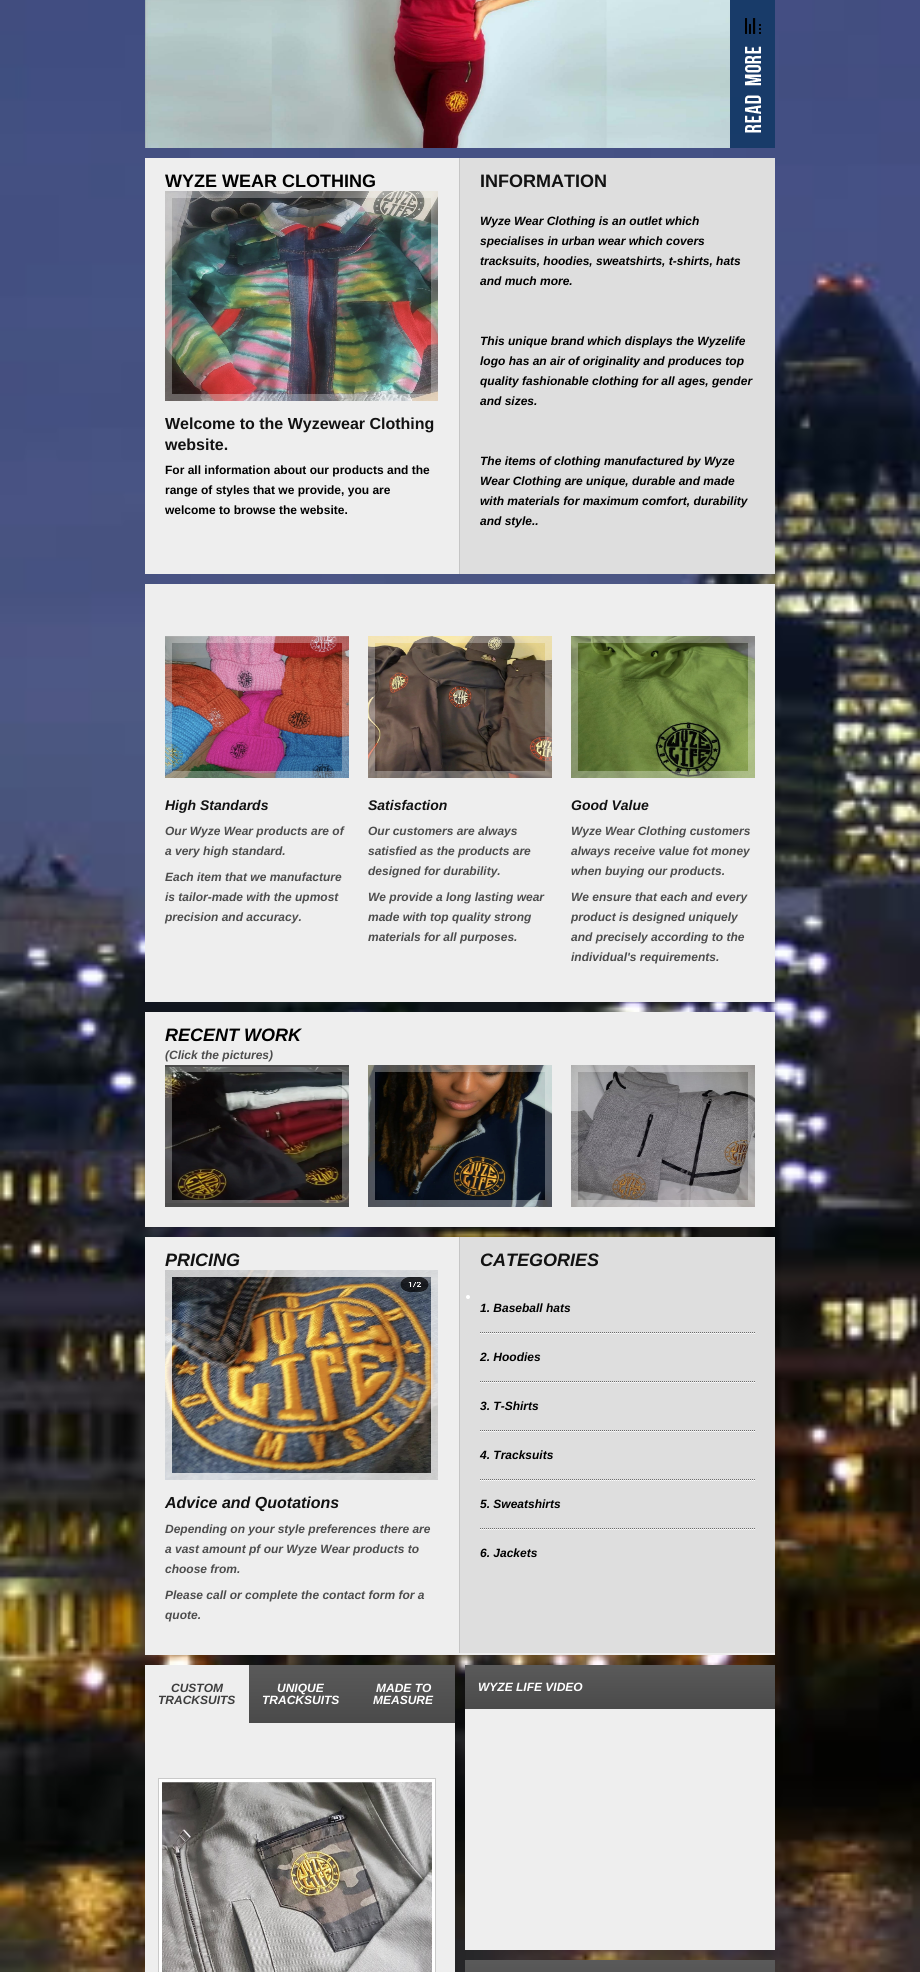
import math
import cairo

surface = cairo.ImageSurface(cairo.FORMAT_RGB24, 920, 1972)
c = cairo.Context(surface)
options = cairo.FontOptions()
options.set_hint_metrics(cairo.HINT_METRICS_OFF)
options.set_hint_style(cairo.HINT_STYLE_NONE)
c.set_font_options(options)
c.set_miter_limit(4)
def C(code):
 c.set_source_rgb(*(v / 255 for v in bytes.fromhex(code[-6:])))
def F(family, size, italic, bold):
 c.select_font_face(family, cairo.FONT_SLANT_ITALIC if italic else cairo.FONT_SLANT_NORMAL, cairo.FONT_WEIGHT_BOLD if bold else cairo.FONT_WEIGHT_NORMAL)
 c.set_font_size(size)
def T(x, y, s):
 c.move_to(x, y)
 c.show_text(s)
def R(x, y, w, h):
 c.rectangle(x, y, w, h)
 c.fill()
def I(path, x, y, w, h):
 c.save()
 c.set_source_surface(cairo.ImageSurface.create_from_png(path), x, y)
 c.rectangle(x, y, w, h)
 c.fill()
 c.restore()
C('ffffff')
c.paint()
I('1.png',0,0,920,1972)
I('2.png',145,0,585,148)
c.set_source_rgba(0.078,0.224,0.4,0.9)
R(730,0,45,148)
I('3.png',745,18,16,115)
C('eeeeee')
R(145,158,314,416)
F('Liberation Sans',18,0,1)
C('000000')
T(165,187,'WYZE WEAR CLOTHING')
I('4.png',165,191,273,210)
c.rectangle(168.5,194.5,266,203)
c.set_source_rgba(1,1,1,0.3)
c.set_line_width(7)
c.stroke()
F('Liberation Sans',16,0,1)
C('121212')
T(165,429,'Welcome to the Wyzewear Clothing')
T(165,450,'website.')
F('Liberation Sans',12,0,1)
C('000000')
T(165,474,'For all information about our products and the')
T(165,494,'range of styles that we provide, you are')
T(165,514,'welcome to browse the website.')
C('dedede')
R(460,158,315,416)
C('c5c5c5')
R(459,158,1,416)
F('Liberation Sans',18,0,1)
C('121212')
T(480,187,'INFORMATION')
F('Liberation Sans',12,1,1)
C('000000')
T(480,225,'Wyze Wear Clothing is an outlet which')
T(480,245,'specialises in urban wear which covers')
T(480,265,'tracksuits, hoodies, sweatshirts, t-shirts, hats')
T(480,285,'and much more.')
T(480,345,'This unique brand which displays the Wyzelife')
T(480,365,'logo has an air of originality and produces top')
T(480,385,'quality fashionable clothing for all ages, gender')
T(480,405,'and sizes.')
T(480,465,'The items of clothing manufactured by Wyze')
T(480,485,'Wear Clothing are unique, durable and made')
T(480,505,'with materials for maximum comfort, durability')
T(480,525,'and style..')
C('eeeeee')
R(145,584,630,418)
I('5.png',165,636,184,142)
c.rectangle(168.5,639.5,177,135)
c.set_source_rgba(1,1,1,0.3)
c.stroke()
F('Liberation Sans',14,1,1)
C('121212')
T(165,810,'High Standards')
F('Liberation Sans',12,1,1)
C('4d4d4d')
T(165,835,'Our Wyze Wear products are of')
T(165,855,'a very high standard.')
T(165,881,'Each item that we manufacture')
T(165,901,'is tailor-made with the upmost')
T(165,921,'precision and accuracy.')
I('6.png',368,636,184,142)
c.rectangle(371.5,639.5,177,135)
c.set_source_rgba(1,1,1,0.3)
c.stroke()
F('Liberation Sans',14,1,1)
C('121212')
T(368,810,'Satisfaction')
F('Liberation Sans',12,1,1)
C('4d4d4d')
T(368,835,'Our customers are always')
T(368,855,'satisfied as the products are')
T(368,875,'designed for durability.')
T(368,901,'We provide a long lasting wear')
T(368,921,'made with top quality strong')
T(368,941,'materials for all purposes.')
I('7.png',571,636,184,142)
c.rectangle(574.5,639.5,177,135)
c.set_source_rgba(1,1,1,0.3)
c.stroke()
F('Liberation Sans',14,1,1)
C('121212')
T(571,810,'Good Value')
F('Liberation Sans',12,1,1)
C('4d4d4d')
T(571,835,'Wyze Wear Clothing customers')
T(571,855,'always receive value fot money')
T(571,875,'when buying our products.')
T(571,901,'We ensure that each and every')
T(571,921,'product is designed uniquely')
T(571,941,'and precisely according to the')
T(571,961,'individual\'s requirements.')
C('eeeeee')
R(145,1012,630,215)
F('Liberation Sans',18,1,1)
C('000000')
T(165,1041,'RECENT WORK')
F('Liberation Sans',12,1,1)
C('4d4d4d')
T(165,1059,'(Click the pictures)')
I('8.png',165,1065,184,142)
c.rectangle(168.5,1068.5,177,135)
c.set_source_rgba(1,1,1,0.3)
c.stroke()
I('9.png',368,1065,184,142)
c.rectangle(371.5,1068.5,177,135)
c.stroke()
I('10.png',571,1065,184,142)
c.rectangle(574.5,1068.5,177,135)
c.stroke()
C('eeeeee')
R(145,1237,630,418)
F('Liberation Sans',18,1,1)
C('121212')
T(165,1266,'PRICING')
I('11.png',165,1270,273,210)
c.rectangle(168.5,1273.5,266,203)
c.set_source_rgba(1,1,1,0.3)
c.stroke()
c.rectangle(168.5,1273.5,266,203)
c.stroke()
c.rectangle(168.5,1273.5,266,203)
c.stroke()
c.rectangle(168.5,1273.5,266,203)
c.stroke()
F('Liberation Sans',16,1,1)
C('121212')
T(165,1508,'Advice and Quotations')
F('Liberation Sans',12,1,1)
C('4d4d4d')
T(165,1533,'Depending on your style preferences there are')
T(165,1553,'a vast amount pf our Wyze Wear products to')
T(165,1573,'choose from.')
T(165,1599,'Please call or complete the contact form for a')
T(165,1619,'quote.')
C('dedede')
R(460,1237,315,416)
C('c5c5c5')
R(459,1237,1,416)
F('Liberation Sans',18,1,1)
C('121212')
T(480,1266,'CATEGORIES')
C('ffffff')
c.new_path()
c.arc(468,1297,2,0,2 * math.pi)
c.fill()
F('Liberation Sans',12,1,1)
C('000000')
T(480,1312,'1. Baseball hats')
c.new_path()
c.move_to(480,1332.5)
c.line_to(755,1332.5)
C('6a6a6a')
c.set_line_width(1)
c.set_dash([1,1])
c.stroke()
c.new_path()
c.move_to(480,1333.5)
c.line_to(755,1333.5)
C('ffffff')
c.stroke()
C('000000')
T(480,1361,'2. Hoodies')
c.new_path()
c.move_to(480,1381.5)
c.line_to(755,1381.5)
C('6a6a6a')
c.stroke()
c.new_path()
c.move_to(480,1382.5)
c.line_to(755,1382.5)
C('ffffff')
c.stroke()
C('000000')
T(480,1410,'3. T-Shirts')
c.new_path()
c.move_to(480,1430.5)
c.line_to(755,1430.5)
C('6a6a6a')
c.stroke()
c.new_path()
c.move_to(480,1431.5)
c.line_to(755,1431.5)
C('ffffff')
c.stroke()
C('000000')
T(480,1459,'4. Tracksuits')
c.new_path()
c.move_to(480,1479.5)
c.line_to(755,1479.5)
C('6a6a6a')
c.stroke()
c.new_path()
c.move_to(480,1480.5)
c.line_to(755,1480.5)
C('ffffff')
c.stroke()
C('000000')
T(480,1508,'5. Sweatshirts')
c.new_path()
c.move_to(480,1528.5)
c.line_to(755,1528.5)
C('6a6a6a')
c.stroke()
c.new_path()
c.move_to(480,1529.5)
c.line_to(755,1529.5)
C('ffffff')
c.stroke()
C('000000')
T(480,1557,'6. Jackets')
C('eeeeee')
R(145,1723,310,249)
R(145,1665,104,58)
C('3d3d3d')
T(171,1692,'CUSTOM')
T(158,1704,'TRACKSUITS')
gradient = cairo.LinearGradient(301,1665,301,1723)
gradient.add_color_stop_rgba(0,0.353,0.353,0.353,1)
gradient.add_color_stop_rgba(1,0.29,0.29,0.29,1)
c.set_source(gradient)
R(249,1665,103,58)
C('ffffff')
T(277,1692,'UNIQUE')
T(262,1704,'TRACKSUITS')
gradient = cairo.LinearGradient(404,1665,404,1723)
gradient.add_color_stop_rgba(0,0.353,0.353,0.353,1)
gradient.add_color_stop_rgba(1,0.29,0.29,0.29,1)
c.set_source(gradient)
R(352,1665,103,58)
C('ffffff')
T(376,1692,'MADE TO')
T(373,1704,'MEASURE')
c.rectangle(158.5,1778.5,277,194)
c.fill_preserve()
C('c9c9c9')
c.set_dash([])
c.stroke()
I('12.png',162,1782,270,190)
C('eeeeee')
R(465,1709,310,241)
gradient = cairo.LinearGradient(620,1665,620,1709)
gradient.add_color_stop_rgba(0,0.353,0.353,0.353,1)
gradient.add_color_stop_rgba(1,0.29,0.29,0.29,1)
c.set_source(gradient)
R(465,1665,310,44)
C('ffffff')
T(478,1691,'WYZE LIFE VIDEO')
gradient = cairo.LinearGradient(620,1960,620,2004)
gradient.add_color_stop_rgba(0,0.353,0.353,0.353,1)
gradient.add_color_stop_rgba(1,0.29,0.29,0.29,1)
c.set_source(gradient)
R(465,1960,310,12)
surface.write_to_png('o.png')
